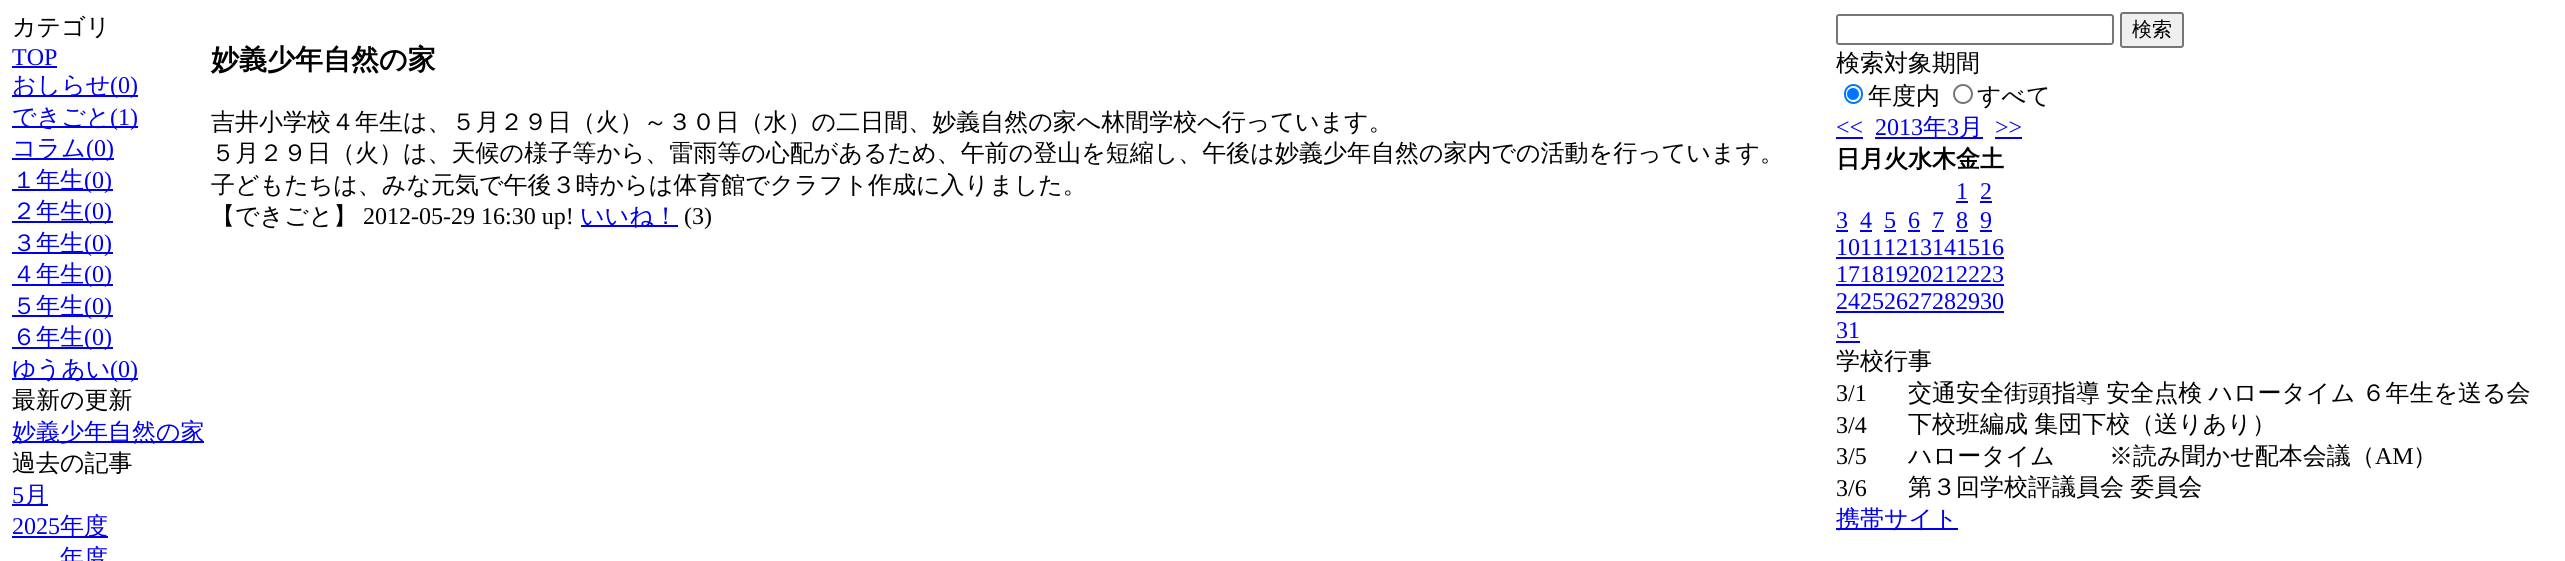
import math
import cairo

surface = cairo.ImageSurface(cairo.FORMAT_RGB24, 2565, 561)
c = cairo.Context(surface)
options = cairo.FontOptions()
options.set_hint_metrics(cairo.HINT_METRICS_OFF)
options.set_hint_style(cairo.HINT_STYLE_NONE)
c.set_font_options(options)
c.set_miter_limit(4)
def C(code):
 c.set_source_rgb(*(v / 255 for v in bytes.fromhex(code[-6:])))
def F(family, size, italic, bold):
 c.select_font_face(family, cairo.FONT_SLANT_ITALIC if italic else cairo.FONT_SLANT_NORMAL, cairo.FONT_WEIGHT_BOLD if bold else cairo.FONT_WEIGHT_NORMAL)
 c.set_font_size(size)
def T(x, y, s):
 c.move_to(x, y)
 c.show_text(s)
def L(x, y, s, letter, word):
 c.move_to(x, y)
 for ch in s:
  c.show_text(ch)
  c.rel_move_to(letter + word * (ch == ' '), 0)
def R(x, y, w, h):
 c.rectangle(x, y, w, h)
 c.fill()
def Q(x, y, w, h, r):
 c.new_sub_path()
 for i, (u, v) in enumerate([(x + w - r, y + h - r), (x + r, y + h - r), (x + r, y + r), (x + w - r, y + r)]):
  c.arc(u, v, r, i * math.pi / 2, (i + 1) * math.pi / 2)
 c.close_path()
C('ffffff')
c.paint()
F('WenQuanYi Zen Hei Medium',24,0,0)
C('000000')
T(12,35,'カテゴリ')
F('Liberation Serif',24,0,0)
C('0000ee')
T(12,65,'TOP')
R(12,66,45,2)
R(12,95,126,2)
F('WenQuanYi Zen Hei Medium',24,0,0)
T(12,93,'おしらせ')
F('Liberation Serif',24,0,0)
T(110,93,'(0)')
R(12,126,126,2)
F('WenQuanYi Zen Hei Medium',24,0,0)
T(12,125,'できごと')
F('Liberation Serif',24,0,0)
T(110,125,'(1)')
R(12,158,102,2)
F('WenQuanYi Zen Hei Medium',24,0,0)
T(12,156,'コラム')
F('Liberation Serif',24,0,0)
T(86,156,'(0)')
R(12,189,101,2)
F('WenQuanYi Zen Hei Medium',24,0,0)
T(12,188,'１年生')
F('Liberation Serif',24,0,0)
T(84,188,'(0)')
R(12,221,101,2)
F('WenQuanYi Zen Hei Medium',24,0,0)
T(12,219,'２年生')
F('Liberation Serif',24,0,0)
T(84,219,'(0)')
R(12,252,101,2)
F('WenQuanYi Zen Hei Medium',24,0,0)
T(12,251,'３年生')
F('Liberation Serif',24,0,0)
T(84,251,'(0)')
R(12,284,101,2)
F('WenQuanYi Zen Hei Medium',24,0,0)
T(12,282,'４年生')
F('Liberation Serif',24,0,0)
T(84,282,'(0)')
R(12,315,101,2)
F('WenQuanYi Zen Hei Medium',24,0,0)
T(12,314,'５年生')
F('Liberation Serif',24,0,0)
T(84,314,'(0)')
R(12,347,101,2)
F('WenQuanYi Zen Hei Medium',24,0,0)
T(12,345,'６年生')
F('Liberation Serif',24,0,0)
T(84,345,'(0)')
R(12,378,126,2)
F('WenQuanYi Zen Hei Medium',24,0,0)
T(12,377,'ゆうあい')
F('Liberation Serif',24,0,0)
T(110,377,'(0)')
F('WenQuanYi Zen Hei Medium',24,0,0)
C('000000')
T(12,408,'最新の更新')
C('0000ee')
R(12,441,192,2)
T(12,440,'妙義少年自然の家')
C('000000')
T(12,471,'過去の記事')
F('Liberation Serif',24,0,0)
C('0000ee')
T(12,503,'5')
R(12,504,36,2)
F('WenQuanYi Zen Hei Medium',24,0,0)
T(24,503,'月')
F('Liberation Serif',24,0,0)
T(12,534,'2025')
R(12,536,96,2)
F('WenQuanYi Zen Hei Medium',24,0,0)
T(60,534,'年度')
T(60,566,'年度')
F('WenQuanYi Zen Hei',28,0,1)
C('000000')
T(211,69,'妙義少年自然の家')
F('WenQuanYi Zen Hei Medium',24,0,0)
T(211,130,'吉井小学校４年生は、５月２９日（火）～３０日（水）の二日間、妙義自然の家へ林間学校へ行っています。')
T(211,161,'５月２９日（火）は、天候の様子等から、雷雨等の心配があるため、午前の登山を短縮し、午後は妙義少年自然の家内での活動を行っています。')
T(211,193,'子どもたちは、みな元気で午後３時からは体育館でクラフト作成に入りました。')
T(211,224,'【できごと】')
F('Liberation Serif',24,0,0)
T(363,224,'2012-05-29 16:30 up!')
C('0000ee')
R(581,225,97,2)
F('WenQuanYi Zen Hei Medium',24,0,0)
T(580,224,'いいね！')
F('Liberation Serif',24,0,0)
C('000000')
T(684,224,'(3)')
Q(1837,15,276,29,2)
C('767676')
c.stroke()
C('efefef')
Q(2121,13,62,34,2)
c.fill_preserve()
C('767676')
c.stroke()
F('WenQuanYi Zen Hei Medium',20,0,0)
C('000000')
T(2132,36,'検索')
F('WenQuanYi Zen Hei Medium',24,0,0)
T(1836,71,'検索対象期間')
Q(1845,85,17,18,8.5)
C('0075ff')
c.stroke()
c.arc(1853,94,6,0,2 * math.pi)
c.fill()
C('000000')
T(1868,104,'年度内')
c.new_path()
c.arc(1963,94,9,0,2 * math.pi)
C('767676')
c.stroke()
C('000000')
T(1977,104,'すべて')
F('Liberation Serif',24,0,0)
C('0000ee')
T(1836,135,'<<')
R(1836,137,27,2)
T(1875,135,'2013')
R(1875,137,108,2)
F('WenQuanYi Zen Hei Medium',24,0,0)
T(1923,135,'年')
F('Liberation Serif',24,0,0)
T(1947,135,'3')
F('WenQuanYi Zen Hei Medium',24,0,0)
T(1959,135,'月')
F('Liberation Serif',24,0,0)
T(1995,135,'>>')
R(1995,137,27,2)
F('WenQuanYi Zen Hei',24,0,1)
C('000000')
T(1836,167,'日月火水木金土')
F('Liberation Serif',24,0,0)
C('0000ee')
T(1956,199,'1')
R(1956,201,12,2)
T(1980,199,'2')
R(1980,201,12,2)
T(1836,228,'3')
R(1836,230,12,2)
T(1860,228,'4')
R(1860,230,12,2)
T(1884,228,'5')
R(1884,230,12,2)
T(1908,228,'6')
R(1908,230,12,2)
T(1932,228,'7')
R(1932,230,12,2)
T(1956,228,'8')
R(1956,230,12,2)
T(1980,228,'9')
R(1980,230,12,2)
T(1836,255,'10111213141516')
R(1836,257,168,2)
T(1836,282,'17181920212223')
R(1836,284,168,2)
T(1836,309,'24252627282930')
R(1836,311,168,2)
T(1836,338,'31')
R(1836,341,24,2)
F('WenQuanYi Zen Hei Medium',24,0,0)
C('000000')
T(1836,369,'学校行事')
F('Liberation Serif',24,0,0)
T(1836,401,'3/1')
F('WenQuanYi Zen Hei Medium',24,0,0)
L(1908,401,'交通安全街頭指導 安全点検 ハロータイム ６年生を送る会',0,-1)
F('Liberation Serif',24,0,0)
T(1836,433,'3/4')
F('WenQuanYi Zen Hei Medium',24,0,0)
L(1908,432,'下校班編成 集団下校（送りあり）',0,-1)
F('Liberation Serif',24,0,0)
T(1836,464,'3/5')
F('WenQuanYi Zen Hei Medium',24,0,0)
L(1908,464,'ハロータイム　　 ※読み聞かせ配本会議（',0,-1)
F('Liberation Serif',24,0,0)
T(2375,464,'AM')
F('WenQuanYi Zen Hei Medium',24,0,0)
T(2413,464,'）')
F('Liberation Serif',24,0,0)
T(1836,496,'3/6')
F('WenQuanYi Zen Hei Medium',24,0,0)
L(1908,495,'第３回学校評議員会 委員会',0,-1)
C('0000ee')
R(1836,528,122,2)
T(1836,527,'携帯サイト')
surface.write_to_png('o.png')
